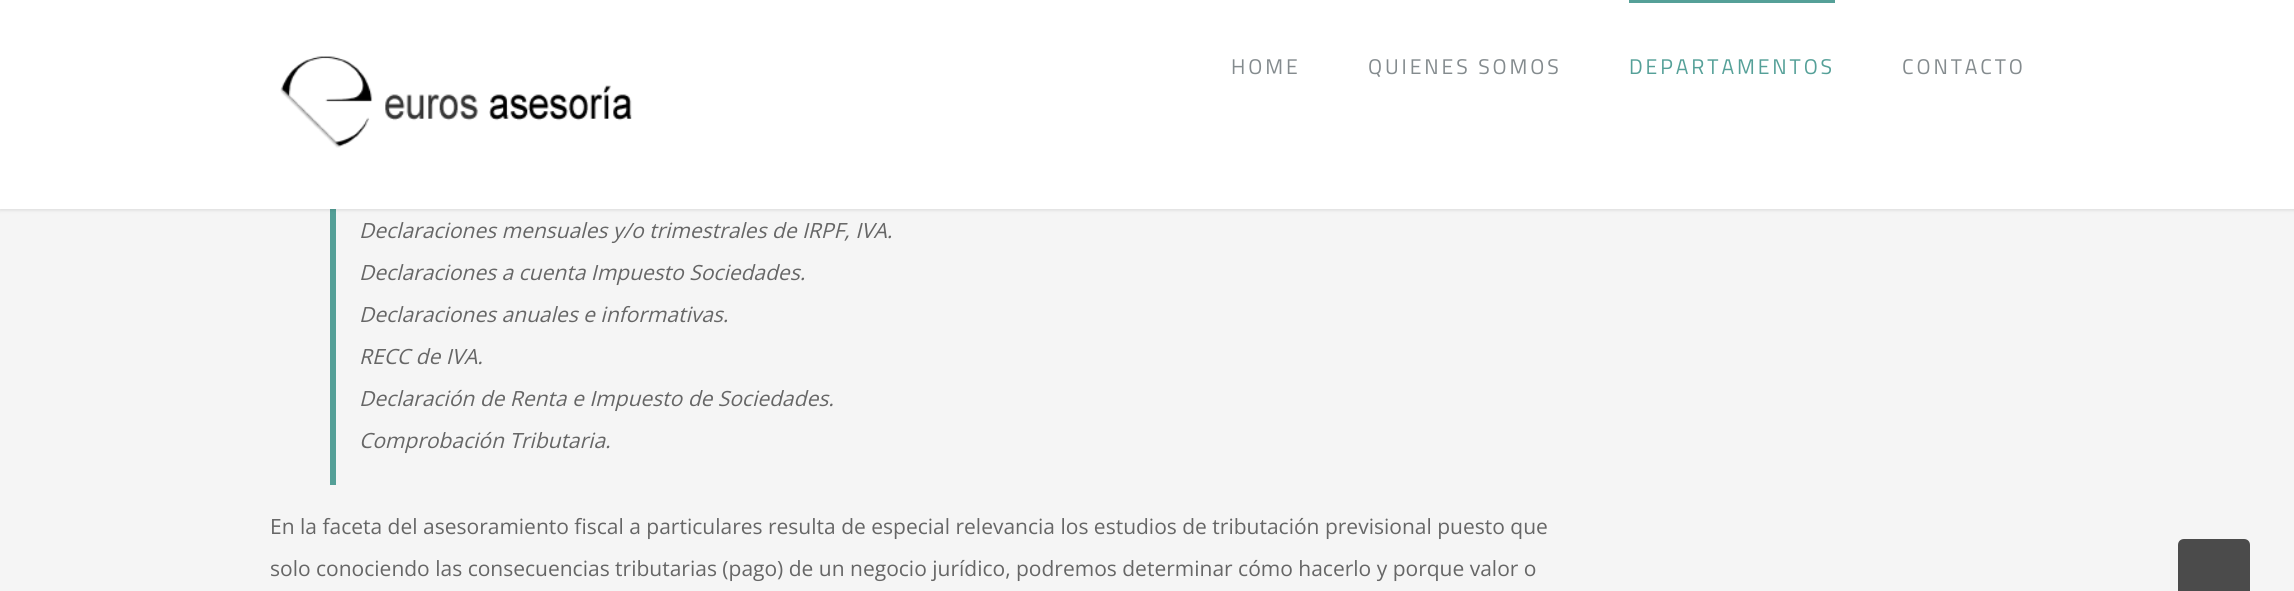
import math
import cairo

surface = cairo.ImageSurface(cairo.FORMAT_RGB24, 2294, 591)
c = cairo.Context(surface)
options = cairo.FontOptions()
options.set_hint_metrics(cairo.HINT_METRICS_OFF)
options.set_hint_style(cairo.HINT_STYLE_NONE)
c.set_font_options(options)
c.set_miter_limit(4)
def C(code):
 c.set_source_rgb(*(v / 255 for v in bytes.fromhex(code[-6:])))
def F(family, size, italic, bold):
 c.select_font_face(family, cairo.FONT_SLANT_ITALIC if italic else cairo.FONT_SLANT_NORMAL, cairo.FONT_WEIGHT_BOLD if bold else cairo.FONT_WEIGHT_NORMAL)
 c.set_font_size(size)
def T(x, y, s):
 c.move_to(x, y)
 c.show_text(s)
def L(x, y, s, letter, word):
 c.move_to(x, y)
 for ch in s:
  c.show_text(ch)
  c.rel_move_to(letter + word * (ch == ' '), 0)
def R(x, y, w, h):
 c.rectangle(x, y, w, h)
 c.fill()
def Q(x, y, w, h, r):
 c.new_sub_path()
 for i, (u, v) in enumerate([(x + w - r, y + h - r), (x + r, y + h - r), (x + r, y + r), (x + w - r, y + r)]):
  c.arc(u, v, r, i * math.pi / 2, (i + 1) * math.pi / 2)
 c.close_path()
def S(x, y, w, h, r, blur, alpha):
 c.push_group_with_content(cairo.CONTENT_ALPHA)
 c.set_operator(cairo.OPERATOR_SOURCE)
 for i in range(15, -16, -2):
  e = blur * i / 6
  if min(w, h) + 2 * e > 0:
   c.set_source_rgba(0, 0, 0, alpha * math.erfc((i - 1) / 8.5) / 2)
   Q(x - e, y - e, w + 2 * e, h + 2 * e, max(0, min(r + e + blur * .6, min(w, h) / 2 + e)))
   c.fill()
 c.mask(c.pop_group())
def I(path, x, y, w, h):
 c.save()
 c.set_source_surface(cairo.ImageSurface.create_from_png(path), x, y)
 c.rectangle(x, y, w, h)
 c.fill()
 c.restore()
C('f5f5f5')
c.paint()
C('549f97')
R(330,209,6,276)
C('000000')
S(0,2,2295,208,0,2,.12)
C('ffffff')
R(0,0,2294,209)
I('1.png',280,56,352,92)
F('Titillium Web',21.25,0,0)
C('848b8e')
L(1231,74,'HOME',2.9,0)
L(1368,74,'QUIENES SOMOS',2.9,0)
C('55a098')
R(1629,0,206,3)
L(1629,74,'DEPARTAMENTOS',2.9,0)
C('848b8e')
L(1902,74,'CONTACTO',2.9,0)
F('Open Sans',21,1,0)
C('666666')
T(359,238,'Declaraciones mensuales y/o trimestrales de IRPF, IVA.')
T(359,280,'Declaraciones a cuenta Impuesto Sociedades.')
T(359,322,'Declaraciones anuales e informativas.')
T(359,364,'RECC de IVA.')
T(359,406,'Declaración de Renta e Impuesto de Sociedades.')
T(359,448,'Comprobación Tributaria.')
F('Open Sans',21,0,0)
T(270,534,'En la faceta del asesoramiento fiscal a particulares resulta de especial relevancia los estudios de tributación previsional puesto que')
T(270,576,'solo conociendo las consecuencias tributarias (pago) de un negocio jurídico, podremos determinar cómo hacerlo y porque valor o')
C('4b4b4b')
c.new_path()
c.move_to(2184,539)
c.line_to(2244,539)
c.curve_to(2247.5,539,2250,541.5,2250,545)
c.line_to(2250,591)
c.line_to(2178,591)
c.line_to(2178,545)
c.curve_to(2178,541.5,2180.5,539,2184,539)
c.close_path()
c.fill()
surface.write_to_png('o.png')
